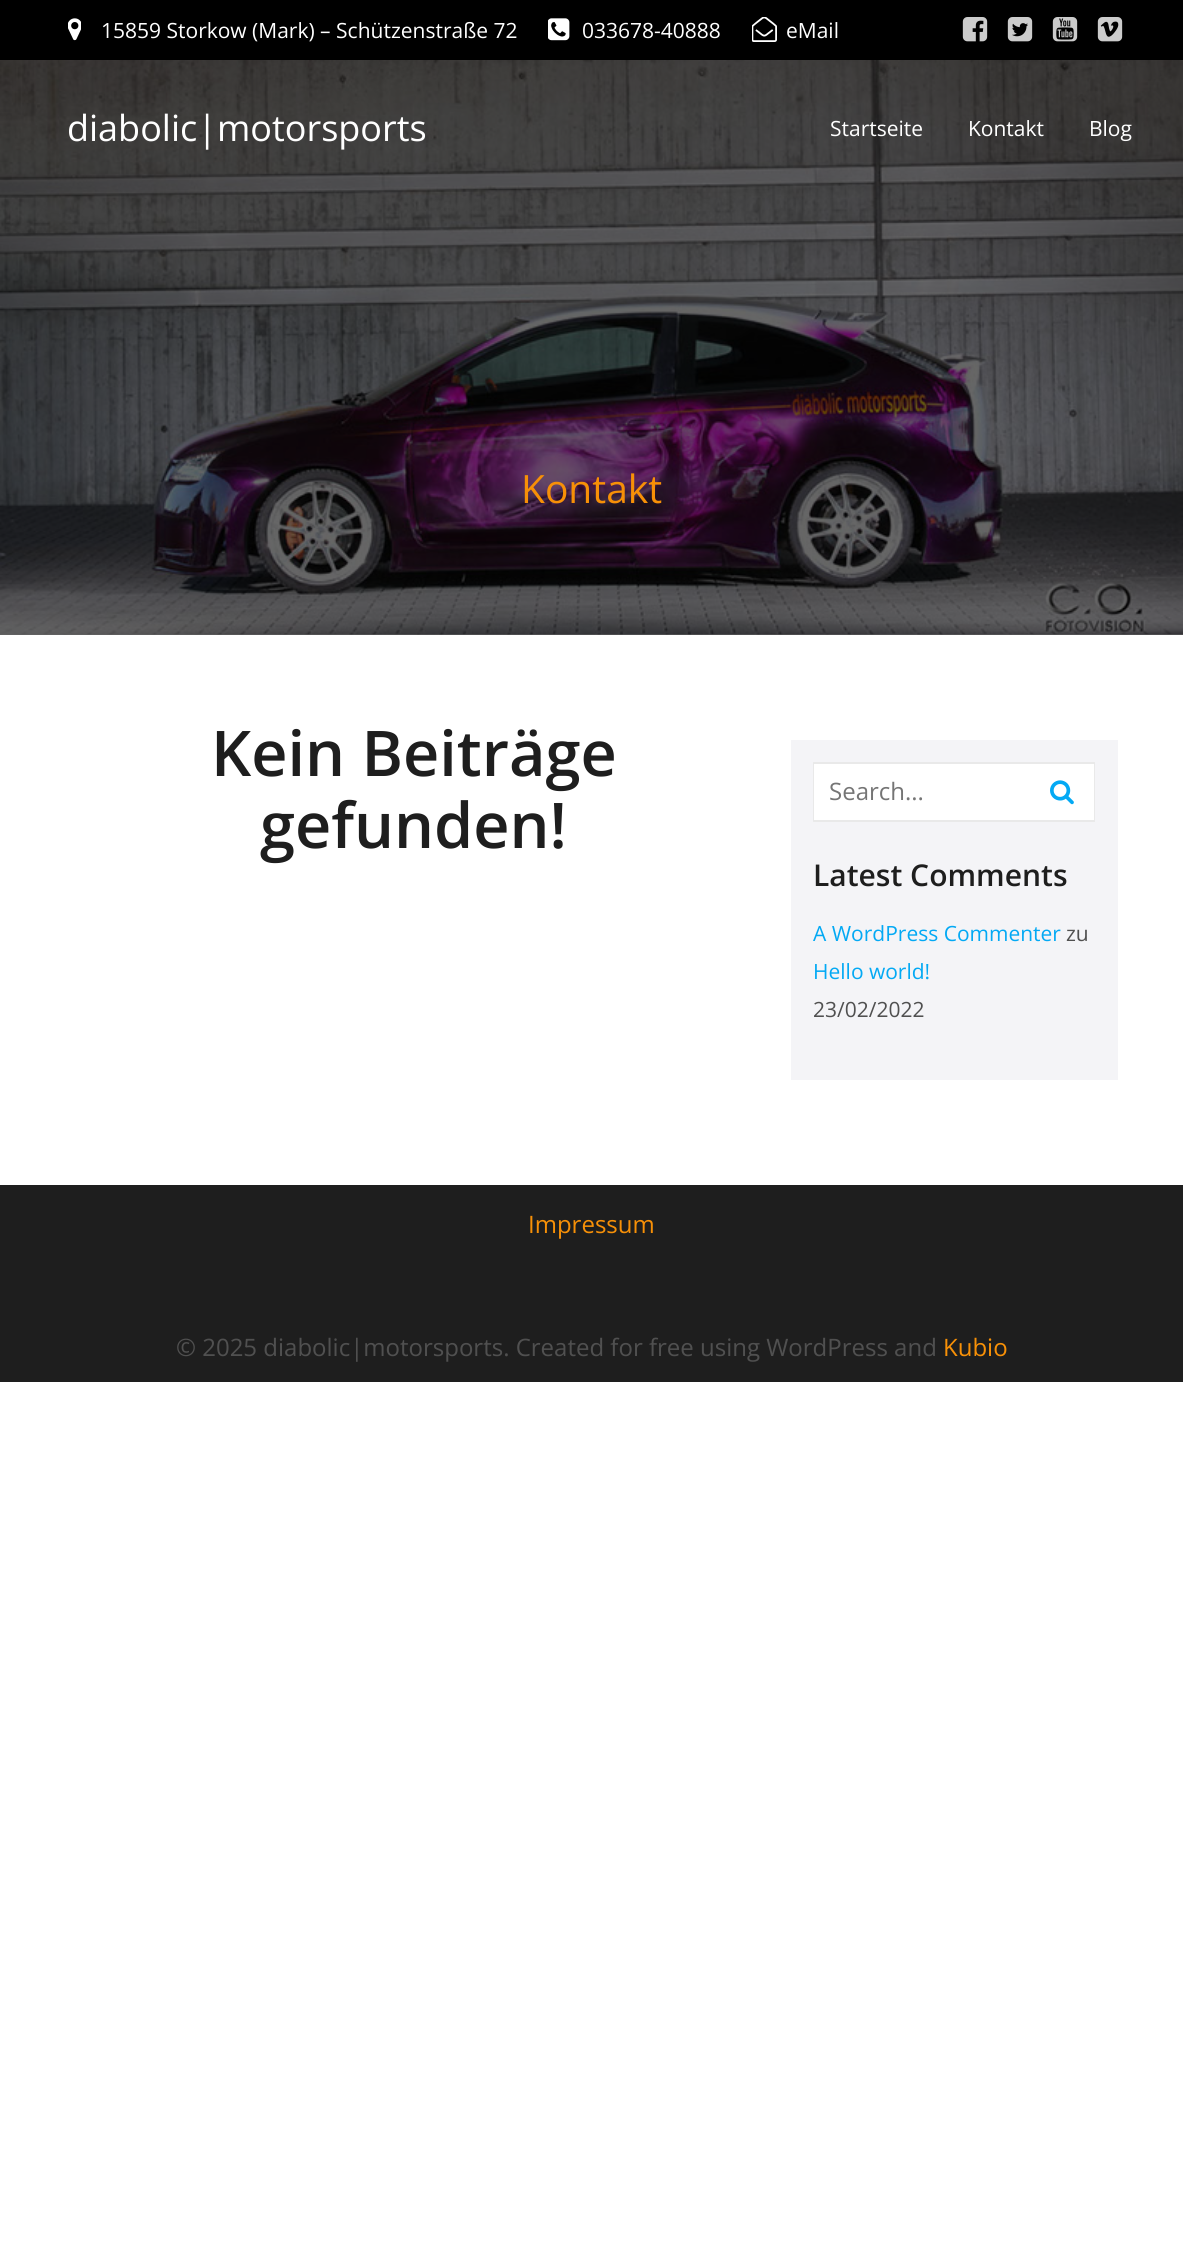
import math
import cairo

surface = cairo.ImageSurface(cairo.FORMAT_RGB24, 1183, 2268)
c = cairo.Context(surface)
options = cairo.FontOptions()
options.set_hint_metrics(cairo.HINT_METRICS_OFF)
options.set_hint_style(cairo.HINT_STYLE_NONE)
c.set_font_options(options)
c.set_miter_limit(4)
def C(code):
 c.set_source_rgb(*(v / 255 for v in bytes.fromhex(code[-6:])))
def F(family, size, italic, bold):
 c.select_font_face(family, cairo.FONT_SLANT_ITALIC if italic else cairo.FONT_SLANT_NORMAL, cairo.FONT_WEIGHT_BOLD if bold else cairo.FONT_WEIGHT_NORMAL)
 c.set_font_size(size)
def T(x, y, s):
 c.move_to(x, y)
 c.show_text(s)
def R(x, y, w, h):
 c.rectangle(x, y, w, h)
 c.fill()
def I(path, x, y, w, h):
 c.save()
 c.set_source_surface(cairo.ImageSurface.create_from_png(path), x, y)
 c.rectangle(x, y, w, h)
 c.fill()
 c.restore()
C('ffffff')
c.paint()
C('666666')
R(0,634,1183,1)
C('000000')
R(0,0,1183,60)
I('1.png',68,18,13,23)
F('Open Sans',21,0,0)
C('ffffff')
T(101,38,'15859 Storkow (Mark) – Schützenstraße 72')
I('2.png',548,18,22,23)
T(582,38,'033678-40888')
I('3.png',752,17,25,25)
T(786,38,'eMail')
I('4.png',962,17,26,25)
I('5.png',1007,17,26,25)
I('6.png',1052,17,26,25)
I('7.png',1097,17,26,25)
I('8.png',0,60,1183,575)
F('Open Sans',36,0,0)
T(67,141,'diabolic|motorsports')
F('Open Sans',21,0,0)
T(830,136,'Startseite')
T(968,136,'Kontakt')
T(1089,136,'Blog')
F('Open Sans',39,0,0)
C('f79007')
T(521,503,'Kontakt')
F('Open Sans SemiBold',63,0,0)
C('1e1e1e')
T(211,776,'Kein Beiträge')
T(260,848,'gefunden!')
C('f4f4f7')
R(791,740,327,340)
C('ffffff')
R(813,762,282,60)
C('e9e9e9')
c.new_path()
c.move_to(813,762)
c.line_to(1030,762)
c.line_to(1030,764)
c.line_to(814,764)
c.close_path()
c.fill()
c.new_path()
c.move_to(1030,822)
c.line_to(813,822)
c.line_to(814,820)
c.line_to(1030,820)
c.close_path()
c.fill()
c.set_source_rgba(0.118,0.118,0.118,0.1)
c.new_path()
c.move_to(813,822)
c.line_to(813,762)
c.line_to(814,764)
c.line_to(814,820)
c.close_path()
c.fill()
F('Open Sans',24,0,0)
C('757575')
T(829,800,'Search...')
C('e9e9e9')
c.new_path()
c.move_to(1030,762)
c.line_to(1095,762)
c.line_to(1094,764)
c.line_to(1030,764)
c.close_path()
c.fill()
c.set_source_rgba(0.118,0.118,0.118,0.1)
c.new_path()
c.move_to(1095,762)
c.line_to(1095,822)
c.line_to(1094,820)
c.line_to(1094,764)
c.close_path()
c.fill()
c.new_path()
c.move_to(1095,822)
c.line_to(1030,822)
c.line_to(1030,820)
c.line_to(1094,820)
c.close_path()
c.fill()
I('9.png',1050,780,24,25)
F('Open Sans SemiBold',30,0,0)
C('1e1e1e')
T(813,886,'Latest Comments')
F('Open Sans',21,0,0)
C('03a9f4')
T(813,941,'A WordPress Commenter')
C('505050')
T(1066,941,'zu')
C('03a9f4')
T(813,979,'Hello world!')
C('505050')
T(813,1017,'23/02/2022')
C('1e1e1e')
R(0,1185,1183,197)
F('Open Sans',24,0,0)
C('f79007')
T(528,1233,'Impressum')
C('505050')
T(176,1356,'© 2025 diabolic|motorsports. Created for free using WordPress and')
C('f79007')
T(943,1356,'Kubio')
surface.write_to_png('o.png')
